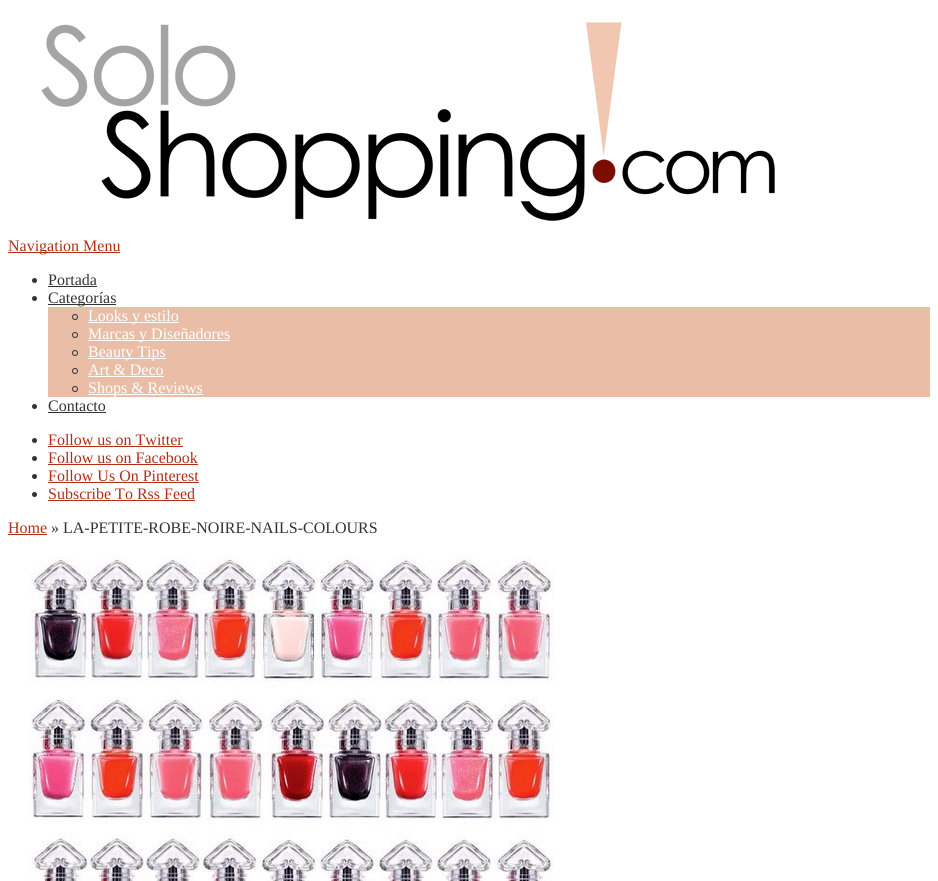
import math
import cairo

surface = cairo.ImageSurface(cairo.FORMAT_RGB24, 938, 881)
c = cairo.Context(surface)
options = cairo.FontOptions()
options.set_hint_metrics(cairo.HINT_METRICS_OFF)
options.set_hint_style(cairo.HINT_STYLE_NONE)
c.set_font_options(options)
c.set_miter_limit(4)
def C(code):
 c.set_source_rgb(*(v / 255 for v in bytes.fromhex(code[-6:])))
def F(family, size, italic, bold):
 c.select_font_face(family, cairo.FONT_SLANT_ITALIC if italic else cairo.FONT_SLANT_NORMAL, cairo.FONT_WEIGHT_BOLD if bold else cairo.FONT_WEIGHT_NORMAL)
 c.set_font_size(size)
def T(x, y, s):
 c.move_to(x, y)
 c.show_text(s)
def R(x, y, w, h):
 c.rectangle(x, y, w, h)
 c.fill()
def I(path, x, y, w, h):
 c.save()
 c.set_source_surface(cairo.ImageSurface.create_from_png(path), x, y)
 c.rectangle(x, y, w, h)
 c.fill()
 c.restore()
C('ffffff')
c.paint()
I('1.png',41,22,734,199)
C('af3016')
R(8,252,112,1)
F('Liberation Serif',16,0,0)
T(8,251,'Navigation Menu')
C('333333')
c.new_path()
c.arc(34.5,280.5,2.5,0,2 * math.pi)
c.fill()
T(48,285,'Portada')
R(48,286,49,1)
c.new_path()
c.arc(34.5,298.5,2.5,0,2 * math.pi)
c.fill()
R(48,304,68,1)
T(48,303,'Categorías')
C('eabda6')
R(48,307,882,90)
c.new_path()
c.arc(75,317,2.5,0,2 * math.pi)
C('333333')
c.set_line_width(1)
c.stroke()
C('ffffff')
R(88,322,91,1)
T(88,321,'Looks y estilo')
c.new_path()
c.arc(75,335,2.5,0,2 * math.pi)
C('333333')
c.stroke()
C('ffffff')
R(88,340,142,1)
T(88,339,'Marcas y Diseñadores')
c.new_path()
c.arc(75,353,2.5,0,2 * math.pi)
C('333333')
c.stroke()
C('ffffff')
R(88,358,78,1)
T(88,357,'Beauty Tips')
c.new_path()
c.arc(75,371,2.5,0,2 * math.pi)
C('333333')
c.stroke()
C('ffffff')
T(88,375,'Art & Deco')
R(88,376,76,1)
c.new_path()
c.arc(75,389,2.5,0,2 * math.pi)
C('333333')
c.stroke()
C('ffffff')
R(88,394,115,1)
T(88,393,'Shops & Reviews')
C('333333')
c.new_path()
c.arc(34.5,406.5,2.5,0,2 * math.pi)
c.fill()
T(48,411,'Contacto')
R(48,412,58,1)
c.new_path()
c.arc(34.5,440.5,2.5,0,2 * math.pi)
c.fill()
C('af3016')
T(48,445,'Follow us on Twitter')
R(48,446,135,1)
C('333333')
c.new_path()
c.arc(34.5,458.5,2.5,0,2 * math.pi)
c.fill()
C('af3016')
T(48,463,'Follow us on Facebook')
R(48,464,150,1)
C('333333')
c.new_path()
c.arc(34.5,476.5,2.5,0,2 * math.pi)
c.fill()
C('af3016')
T(48,481,'Follow Us On Pinterest')
R(48,482,151,1)
C('333333')
c.new_path()
c.arc(34.5,494.5,2.5,0,2 * math.pi)
c.fill()
C('af3016')
T(48,499,'Subscribe To Rss Feed')
R(48,500,147,1)
T(8,533,'Home')
R(8,534,39,1)
C('333333')
T(51,533,'» LA-PETITE-ROBE-NOIRE-NAILS-COLOURS')
I('2.png',29,554,525,327)
surface.write_to_png('o.png')
